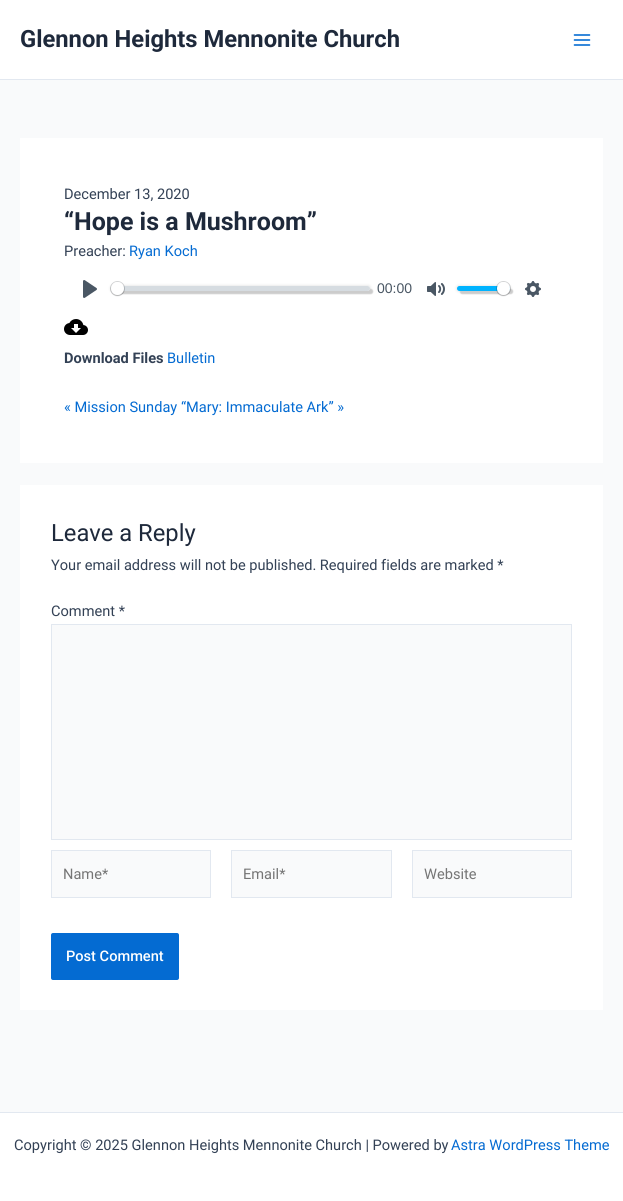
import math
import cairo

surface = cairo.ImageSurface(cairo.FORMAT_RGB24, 623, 1201)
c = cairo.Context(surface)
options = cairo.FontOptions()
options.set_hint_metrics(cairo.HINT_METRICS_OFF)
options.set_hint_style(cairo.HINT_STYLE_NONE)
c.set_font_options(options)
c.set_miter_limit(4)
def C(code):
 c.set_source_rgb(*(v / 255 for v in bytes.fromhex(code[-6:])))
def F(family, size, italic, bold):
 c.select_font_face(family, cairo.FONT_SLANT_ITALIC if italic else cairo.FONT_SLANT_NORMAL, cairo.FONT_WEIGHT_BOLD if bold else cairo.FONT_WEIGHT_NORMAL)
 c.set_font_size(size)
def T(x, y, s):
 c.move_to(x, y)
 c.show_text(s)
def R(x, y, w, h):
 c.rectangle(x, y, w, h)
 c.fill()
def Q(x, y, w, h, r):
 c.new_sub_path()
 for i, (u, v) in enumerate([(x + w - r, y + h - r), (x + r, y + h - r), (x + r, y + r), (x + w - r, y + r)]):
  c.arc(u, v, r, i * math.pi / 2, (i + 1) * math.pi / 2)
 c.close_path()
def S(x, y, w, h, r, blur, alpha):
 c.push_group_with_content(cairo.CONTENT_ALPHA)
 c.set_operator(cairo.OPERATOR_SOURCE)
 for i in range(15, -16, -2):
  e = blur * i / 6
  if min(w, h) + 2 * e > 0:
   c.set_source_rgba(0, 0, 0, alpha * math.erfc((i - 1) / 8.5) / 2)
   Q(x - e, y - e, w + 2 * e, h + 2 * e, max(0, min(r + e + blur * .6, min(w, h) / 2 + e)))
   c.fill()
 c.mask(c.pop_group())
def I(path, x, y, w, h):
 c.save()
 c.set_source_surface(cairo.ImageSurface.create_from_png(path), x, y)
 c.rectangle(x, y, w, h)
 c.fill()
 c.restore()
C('f9fafb')
c.paint()
C('ffffff')
R(0,0,623,79)
C('e2e8f0')
R(0,79,623,1)
F('Roboto',23.75,0,1)
C('1e293b')
T(20,47,'Glennon Heights Mennonite Church')
I('1.png',573,34,18,12)
C('ffffff')
R(20,138,583,325)
F('Roboto',14.6,0,0)
C('334155')
T(64,199,'December 13, 2020')
F('Roboto',25,0,1)
C('1e293b')
T(64,230,'“Hope is a Mushroom”')
F('Roboto',14.6,0,0)
C('334155')
T(64,256,'Preacher:')
C('046bd2')
T(129,256,'Ryan Koch')
I('2.png',83,280,14,18)
c.save()
c.set_fill_rule(cairo.FILL_RULE_EVEN_ODD)
c.new_path()
c.move_to(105,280)
c.line_to(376,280)
c.line_to(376,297)
c.line_to(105,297)
c.close_path()
c.move_to(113.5,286)
c.line_to(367.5,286)
c.curve_to(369,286,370,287,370,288.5)
c.curve_to(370,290,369,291,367.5,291)
c.line_to(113.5,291)
c.curve_to(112,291,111,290,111,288.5)
c.curve_to(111,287,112,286,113.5,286)
c.close_path()
c.clip()
C('d9d9d9')
S(111,286,259,5,2.5,1.5,1)
c.restore()
c.save()
c.set_fill_rule(cairo.FILL_RULE_EVEN_ODD)
c.new_path()
c.move_to(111,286)
c.line_to(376,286)
c.line_to(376,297)
c.line_to(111,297)
c.close_path()
c.move_to(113.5,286)
c.line_to(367.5,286)
c.curve_to(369,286,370,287,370,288.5)
c.curve_to(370,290,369,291,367.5,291)
c.line_to(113.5,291)
c.curve_to(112,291,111,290,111,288.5)
c.curve_to(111,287,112,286,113.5,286)
c.close_path()
c.clip()
C('cccccc')
S(114,289,259,5,2.5,.5,1)
c.restore()
c.set_source_rgba(0.757,0.788,0.82,0.66)
Q(111,286,259,5,2.5)
c.fill()
c.arc(117.5,288.5,7,0,2 * math.pi)
c.set_source_rgba(0.137,0.161,0.184,0.2)
c.set_line_width(1)
c.stroke()
C('000000')
S(111,283,13,13,6.5,.5,.15)
C('ffffff')
c.arc(117.5,288.5,6.5,0,2 * math.pi)
c.fill()
F('Liberation Sans',14,0,0)
C('4a5764')
T(377,293,'00:00')
I('3.png',427,282,18,14)
C('d9d9d9')
S(457,286,53,5,2.5,1.5,1)
C('cccccc')
S(460,289,53,5,2.5,.5,1)
C('00b3ff')
Q(457,286,53,5,2.5)
c.fill()
c.arc(503.5,288.5,7,0,2 * math.pi)
c.set_source_rgba(0.137,0.161,0.184,0.2)
c.stroke()
C('000000')
S(497,283,13,13,6.5,.5,.15)
C('ffffff')
c.arc(503.5,288.5,6.5,0,2 * math.pi)
c.fill()
I('4.png',525,281,16,16)
I('5.png',64,319,24,16)
F('Roboto',14.6,0,1)
C('334155')
T(64,363,'Download Files')
F('Roboto',14.6,0,0)
C('046bd2')
T(167,363,'Bulletin')
T(64,412,'« Mission Sunday “Mary: Immaculate Ark” »')
C('ffffff')
R(20,485,583,525)
F('Roboto',23.75,0,0)
C('1e293b')
T(51,541,'Leave a Reply')
F('Roboto',14.6,0,0)
C('334155')
T(51,570,'Your email address will not be published. Required fields are marked *')
T(51,616,'Comment *')
C('f9fafb')
c.rectangle(51.5,624.5,520,215)
c.fill_preserve()
C('e2e8f0')
c.stroke()
C('f9fafb')
c.rectangle(51.5,850.5,159,47)
c.fill_preserve()
C('e2e8f0')
c.stroke()
C('757575')
T(63,879,'Name*')
C('f9fafb')
c.rectangle(231.5,850.5,160,47)
c.fill_preserve()
C('e2e8f0')
c.stroke()
C('757575')
T(243,879,'Email*')
C('f9fafb')
c.rectangle(412.5,850.5,159,47)
c.fill_preserve()
C('e2e8f0')
c.stroke()
C('757575')
T(424,879,'Website')
C('046bd2')
Q(51,933,128,47,2)
c.fill()
F('Roboto Medium',14.6,0,0)
C('ffffff')
T(66,961,'Post Comment')
R(0,1113,623,88)
C('e2e8f0')
R(0,1112,623,1)
F('Roboto',14.6,0,0)
C('334155')
T(14,1150,'Copyright © 2025 Glennon Heights Mennonite Church | Powered by')
C('046bd2')
T(451,1150,'Astra WordPress Theme')
surface.write_to_png('o.png')
